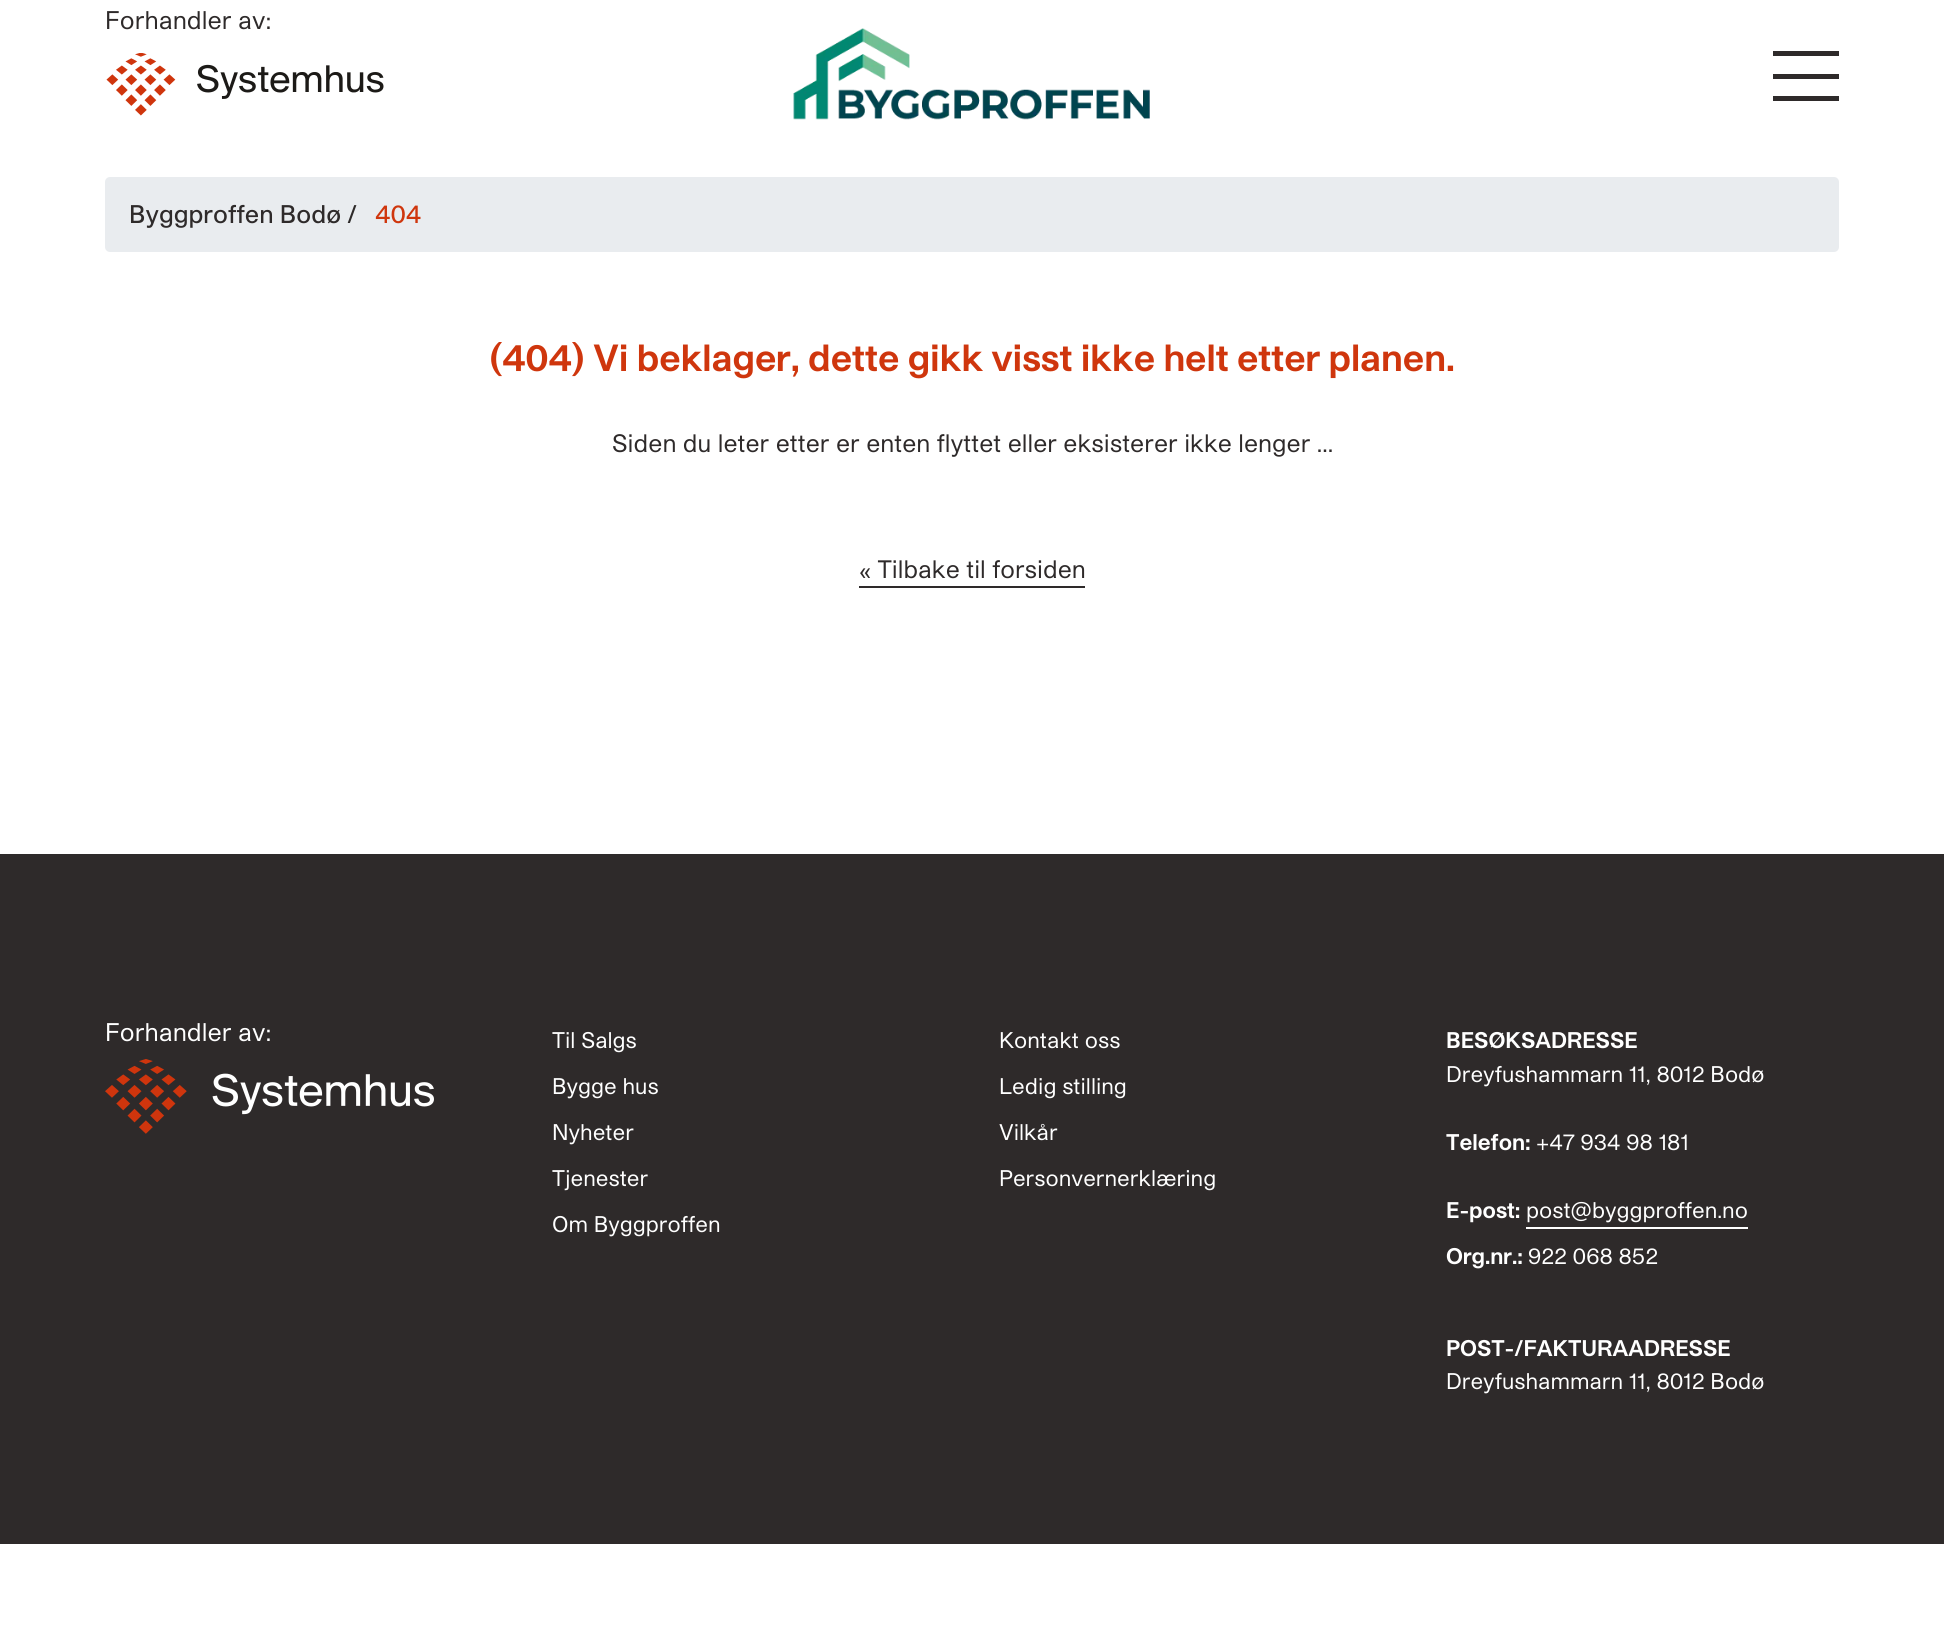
import math
import cairo

surface = cairo.ImageSurface(cairo.FORMAT_RGB24, 1944, 1640)
c = cairo.Context(surface)
options = cairo.FontOptions()
options.set_hint_metrics(cairo.HINT_METRICS_OFF)
options.set_hint_style(cairo.HINT_STYLE_NONE)
c.set_font_options(options)
c.set_miter_limit(4)
def C(code):
 c.set_source_rgb(*(v / 255 for v in bytes.fromhex(code[-6:])))
def F(family, size, italic, bold):
 c.select_font_face(family, cairo.FONT_SLANT_ITALIC if italic else cairo.FONT_SLANT_NORMAL, cairo.FONT_WEIGHT_BOLD if bold else cairo.FONT_WEIGHT_NORMAL)
 c.set_font_size(size)
def T(x, y, s):
 c.move_to(x, y)
 c.show_text(s)
def R(x, y, w, h):
 c.rectangle(x, y, w, h)
 c.fill()
def Q(x, y, w, h, r):
 c.new_sub_path()
 for i, (u, v) in enumerate([(x + w - r, y + h - r), (x + r, y + h - r), (x + r, y + r), (x + w - r, y + r)]):
  c.arc(u, v, r, i * math.pi / 2, (i + 1) * math.pi / 2)
 c.close_path()
def I(path, x, y, w, h):
 c.save()
 c.set_source_surface(cairo.ImageSurface.create_from_png(path), x, y)
 c.rectangle(x, y, w, h)
 c.fill()
 c.restore()
C('ffffff')
c.paint()
F('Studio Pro',24.5,0,0)
C('2e2a2a')
T(105,29,'Forhandler av:')
I('1.png',106,53,278,63)
I('2.png',793,28,357,92)
R(1773,51,66,5)
R(1773,74,66,5)
R(1773,96,66,5)
C('e9ecef')
Q(105,177,1734,75,5)
c.fill()
F('Studio Pro Medium',24.5,0,0)
C('2e2a2a')
T(129,223,'Byggproffen Bodø /')
C('cf360d')
T(375,223,'404')
F('Studio Pro',36.25,0,1)
T(489,371,'(404) Vi beklager, dette gikk visst ikke helt etter planen.')
F('Studio Pro',24.2,0,0)
C('2e2a2a')
T(612,452,'Siden du leter etter er enten flyttet eller eksisterer ikke lenger ...')
T(859,578,'« Tilbake til forsiden')
R(859,586,226,2)
R(0,854,1944,690)
F('Studio Pro',24.5,0,0)
C('ffffff')
T(105,1041,'Forhandler av:')
I('3.png',105,1059,329,75)
F('Studio Pro',21.75,0,0)
T(552,1048,'Til Salgs')
T(552,1094,'Bygge hus')
T(552,1140,'Nyheter')
T(552,1186,'Tjenester')
T(552,1232,'Om Byggproffen')
T(999,1048,'Kontakt oss')
T(999,1094,'Ledig stilling')
T(999,1140,'Vilkår')
T(999,1186,'Personvernerklæring')
F('Studio Pro',21.75,0,1)
T(1446,1048,'BESØKSADRESSE')
F('Studio Pro',21.75,0,0)
T(1446,1082,'Dreyfushammarn 11, 8012 Bodø')
F('Studio Pro',21.75,0,1)
T(1446,1150,'Telefon:')
F('Studio Pro',21.75,0,0)
T(1536,1150,'+47 934 98 181')
F('Studio Pro',21.75,0,1)
T(1446,1218,'E-post:')
F('Studio Pro',21.75,0,0)
T(1526,1218,'post@byggproffen.no')
R(1526,1227,222,2)
F('Studio Pro',21.75,0,1)
T(1446,1264,'Org.nr.:')
F('Studio Pro',21.75,0,0)
T(1528,1264,'922 068 852')
F('Studio Pro',21.75,0,1)
T(1446,1356,'POST-/FAKTURAADRESSE')
F('Studio Pro',21.75,0,0)
T(1446,1389,'Dreyfushammarn 11, 8012 Bodø')
surface.write_to_png('o.png')
